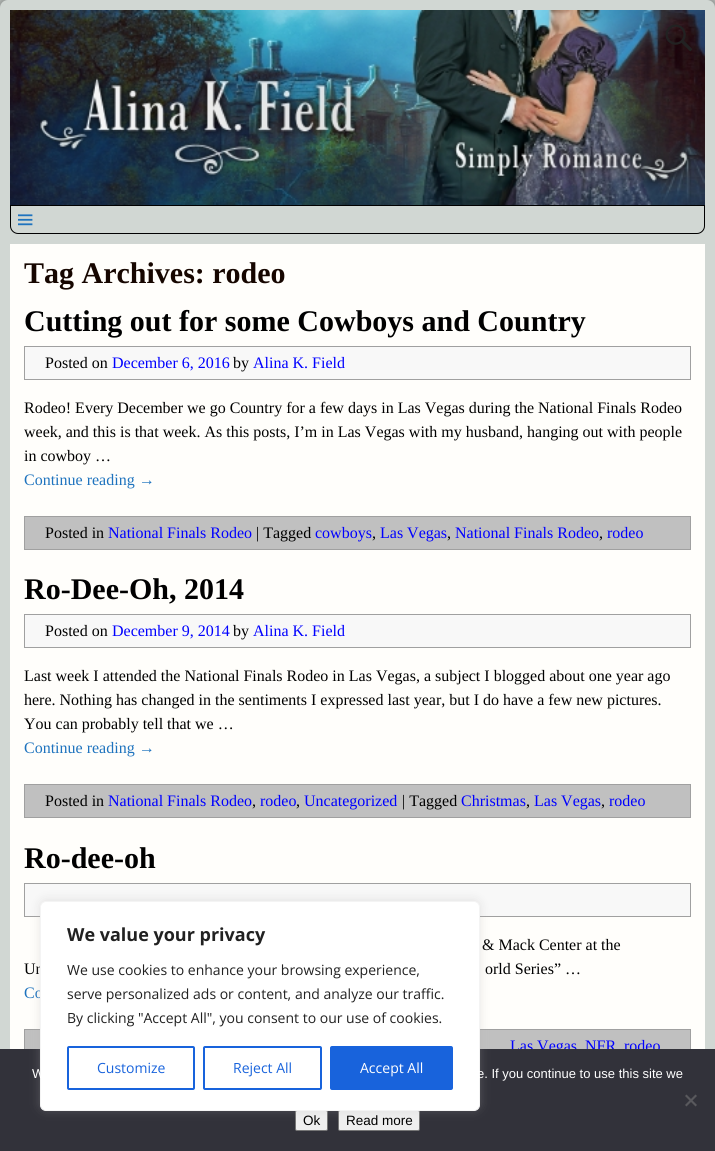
import math
import cairo

surface = cairo.ImageSurface(cairo.FORMAT_RGB24, 715, 1151)
c = cairo.Context(surface)
options = cairo.FontOptions()
options.set_hint_metrics(cairo.HINT_METRICS_OFF)
options.set_hint_style(cairo.HINT_STYLE_NONE)
c.set_font_options(options)
c.set_miter_limit(4)
def C(code):
 c.set_source_rgb(*(v / 255 for v in bytes.fromhex(code[-6:])))
def F(family, size, italic, bold):
 c.select_font_face(family, cairo.FONT_SLANT_ITALIC if italic else cairo.FONT_SLANT_NORMAL, cairo.FONT_WEIGHT_BOLD if bold else cairo.FONT_WEIGHT_NORMAL)
 c.set_font_size(size)
def T(x, y, s):
 c.move_to(x, y)
 c.show_text(s)
def R(x, y, w, h):
 c.rectangle(x, y, w, h)
 c.fill()
def Q(x, y, w, h, r):
 c.new_sub_path()
 for i, (u, v) in enumerate([(x + w - r, y + h - r), (x + r, y + h - r), (x + r, y + r), (x + w - r, y + r)]):
  c.arc(u, v, r, i * math.pi / 2, (i + 1) * math.pi / 2)
 c.close_path()
def S(x, y, w, h, r, blur, alpha):
 c.push_group_with_content(cairo.CONTENT_ALPHA)
 c.set_operator(cairo.OPERATOR_SOURCE)
 for i in range(15, -16, -2):
  e = blur * i / 6
  if min(w, h) + 2 * e > 0:
   c.set_source_rgba(0, 0, 0, alpha * math.erfc((i - 1) / 8.5) / 2)
   Q(x - e, y - e, w + 2 * e, h + 2 * e, max(0, min(r + e + blur * .6, min(w, h) / 2 + e)))
   c.fill()
 c.mask(c.pop_group())
def I(path, x, y, w, h):
 c.save()
 c.set_source_surface(cairo.ImageSurface.create_from_png(path), x, y)
 c.rectangle(x, y, w, h)
 c.fill()
 c.restore()
C('d1d7d3')
c.paint()
C('000000')
S(-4,-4,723,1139,12,1.5,.25)
C('d1d7d3')
Q(0,0,715,1131,8)
c.fill()
I('1.png',10,10,695,195)
I('2.png',665,24,27,28)
c.new_path()
c.move_to(10.5,205.5)
c.line_to(704.5,205.5)
c.line_to(704.5,226)
c.curve_to(704.5,230,701,233.5,697,233.5)
c.line_to(18,233.5)
c.curve_to(14,233.5,10.5,230,10.5,226)
c.close_path()
C('000000')
c.set_line_width(1)
c.stroke()
I('3.png',18,214,15,12)
C('fffefb')
R(10,244,695,805)
F('Liberation Serif',30,0,1)
C('160600')
T(24,283,'Tag Archives: rodeo')
C('000000')
T(24,331,'Cutting out for some Cowboys and Country')
C('f8f8f8')
c.rectangle(24.5,346.5,666,33)
c.fill_preserve()
C('a0a0a0')
c.stroke()
F('Liberation Serif',16,0,0)
C('000000')
T(45,368,'Posted on')
C('0000ff')
T(112,368,'December 6, 2016')
C('000000')
T(233,368,'by')
C('0000ff')
T(253,368,'Alina K. Field')
C('000000')
T(24,413,'Rodeo! Every December we go Country for a few days in Las Vegas during the National Finals Rodeo')
T(24,437,'week, and this is that week. As this posts, I’m in Las Vegas with my husband, hanging out with people')
T(24,461,'in cowboy …')
C('1e73be')
T(24,485,'Continue reading →')
C('c0c0c0')
c.rectangle(24.5,516.5,666,33)
c.fill_preserve()
C('a0a0a0')
c.stroke()
C('000000')
T(45,538,'Posted in')
C('0000ff')
T(108,538,'National Finals Rodeo')
C('000000')
T(256,538,'| Tagged')
C('0000ff')
T(315,538,'cowboys')
C('000000')
T(372,538,',')
C('0000ff')
T(380,538,'Las Vegas')
C('000000')
T(447,538,',')
C('0000ff')
T(455,538,'National Finals Rodeo')
C('000000')
T(599,538,',')
C('0000ff')
T(607,538,'rodeo')
F('Liberation Serif',30,0,1)
C('000000')
T(24,599,'Ro-Dee-Oh, 2014')
C('f8f8f8')
c.rectangle(24.5,614.5,666,33)
c.fill_preserve()
C('a0a0a0')
c.stroke()
F('Liberation Serif',16,0,0)
C('000000')
T(45,636,'Posted on')
C('0000ff')
T(112,636,'December 9, 2014')
C('000000')
T(233,636,'by')
C('0000ff')
T(253,636,'Alina K. Field')
C('000000')
T(24,681,'Last week I attended the National Finals Rodeo in Las Vegas, a subject I blogged about one year ago')
T(24,705,'here. Nothing has changed in the sentiments I expressed last year, but I do have a few new pictures.')
T(24,729,'You can probably tell that we …')
C('1e73be')
T(24,753,'Continue reading →')
C('c0c0c0')
c.rectangle(24.5,784.5,666,33)
c.fill_preserve()
C('a0a0a0')
c.stroke()
C('000000')
T(45,806,'Posted in')
C('0000ff')
T(108,806,'National Finals Rodeo')
C('000000')
T(252,806,',')
C('0000ff')
T(260,806,'rodeo')
C('000000')
T(296,806,',')
C('0000ff')
T(304,806,'Uncategorized')
C('000000')
T(402,806,'| Tagged')
C('0000ff')
T(461,806,'Christmas')
C('000000')
T(526,806,',')
C('0000ff')
T(534,806,'Las Vegas')
C('000000')
T(601,806,',')
C('0000ff')
T(609,806,'rodeo')
F('Liberation Serif',30,0,1)
C('000000')
T(24,868,'Ro-dee-oh')
C('f8f8f8')
c.rectangle(24.5,883.5,666,33)
c.fill_preserve()
C('a0a0a0')
c.stroke()
F('Liberation Serif',16,0,0)
C('000000')
T(482,950,'& Mack Center at the')
T(24,974,'Un')
T(485,974,'orld Series” …')
C('1e73be')
T(24,998,'Co')
C('c0c0c0')
R(25,1030,665,19)
c.rectangle(24.5,1029.5,666,33)
C('a0a0a0')
c.stroke()
C('0000ff')
T(510,1051,'Las Vegas')
T(585,1051,'NFR')
T(624,1051,'rodeo')
C('32323a')
R(0,1049,715,102)
C('efefef')
Q(295.5,1110.5,32,20,1.5)
c.fill_preserve()
C('767676')
c.stroke()
C('efefef')
Q(338.5,1110.5,81,20,1.5)
c.fill_preserve()
C('767676')
c.stroke()
C('acabab')
S(40,900,440,210,6,5,.3)
C('ffffff')
Q(40.5,901.5,439,209,5.5)
c.fill_preserve()
C('f4f4f4')
c.stroke()
F('Open Sans',18,0,1)
C('212121')
T(67,941,'We value your privacy')
F('Open Sans',14,0,0)
T(67,975,'We use cookies to enhance your browsing experience,')
T(67,999,'serve personalized ads or content, and analyze our traffic.')
T(67,1023,'By clicking "Accept All", you consent to our use of cookies.')
Q(68,1047,126,42,1)
C('1863dc')
c.set_line_width(2)
c.stroke()
T(97,1073,'Customize')
Q(204,1047,117,42,1)
c.stroke()
T(233,1073,'Reject All')
Q(331,1047,121,42,1)
c.fill_preserve()
c.stroke()
C('ffffff')
T(360,1073,'Accept All')
F('Liberation Sans',13,0,0)
T(32,1078,'W')
T(477,1078,'e. If you continue to use this site we')
C('59595d')
c.new_path()
c.move_to(695.5,1094.5)
c.line_to(697,1096)
c.line_to(686.5,1106.5)
c.line_to(685,1105)
c.close_path()
c.fill()
c.new_path()
c.move_to(685,1096)
c.line_to(686.5,1094.5)
c.line_to(697,1105)
c.line_to(695.5,1106.5)
c.close_path()
c.fill()
F('Liberation Sans',13.5,0,0)
C('000000')
T(303,1125,'Ok')
T(346,1125,'Read more')
surface.write_to_png('o.png')
